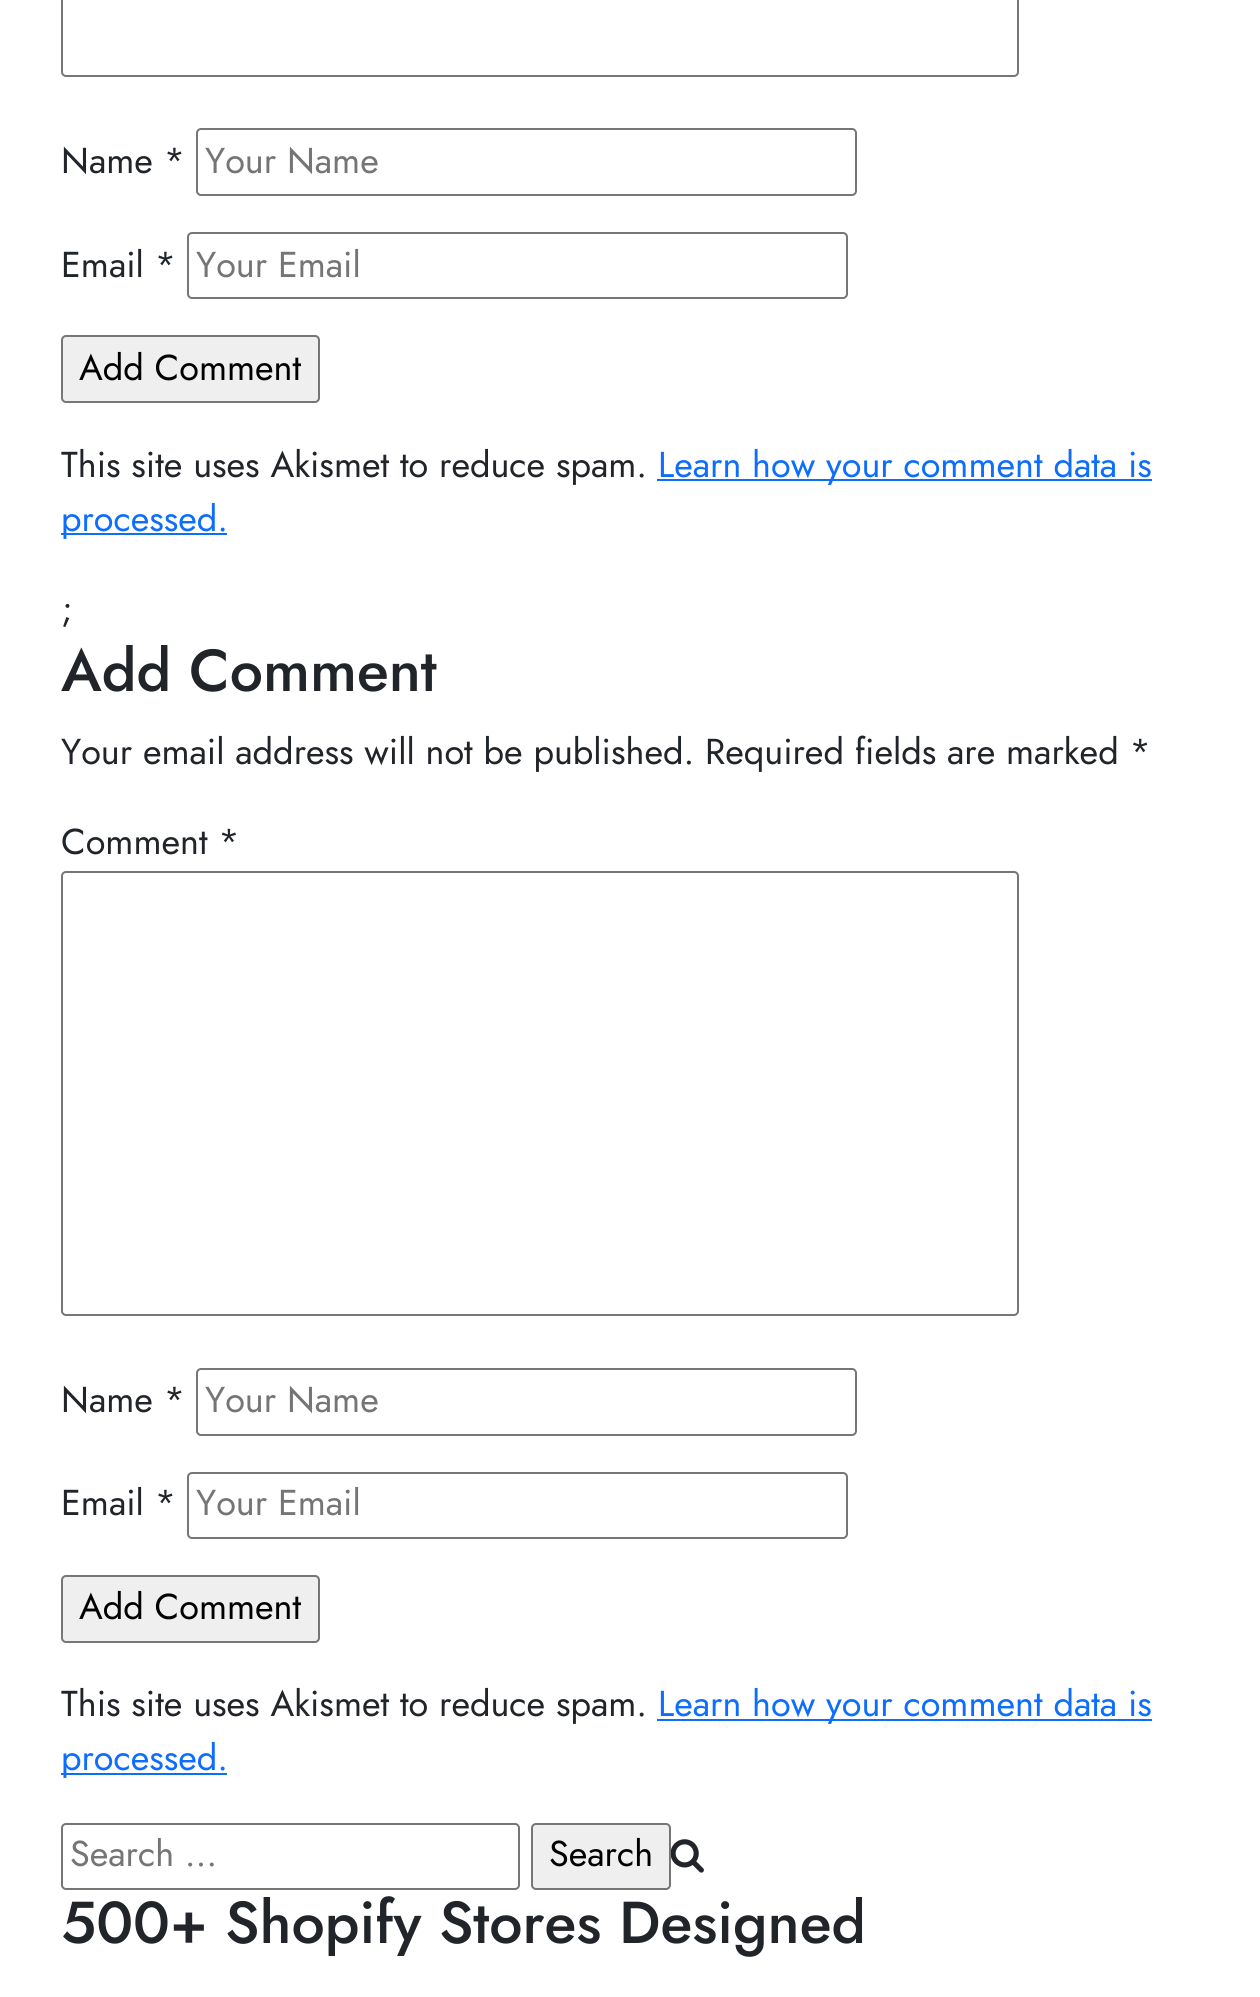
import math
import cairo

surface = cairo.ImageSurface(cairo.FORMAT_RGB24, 1260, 1997)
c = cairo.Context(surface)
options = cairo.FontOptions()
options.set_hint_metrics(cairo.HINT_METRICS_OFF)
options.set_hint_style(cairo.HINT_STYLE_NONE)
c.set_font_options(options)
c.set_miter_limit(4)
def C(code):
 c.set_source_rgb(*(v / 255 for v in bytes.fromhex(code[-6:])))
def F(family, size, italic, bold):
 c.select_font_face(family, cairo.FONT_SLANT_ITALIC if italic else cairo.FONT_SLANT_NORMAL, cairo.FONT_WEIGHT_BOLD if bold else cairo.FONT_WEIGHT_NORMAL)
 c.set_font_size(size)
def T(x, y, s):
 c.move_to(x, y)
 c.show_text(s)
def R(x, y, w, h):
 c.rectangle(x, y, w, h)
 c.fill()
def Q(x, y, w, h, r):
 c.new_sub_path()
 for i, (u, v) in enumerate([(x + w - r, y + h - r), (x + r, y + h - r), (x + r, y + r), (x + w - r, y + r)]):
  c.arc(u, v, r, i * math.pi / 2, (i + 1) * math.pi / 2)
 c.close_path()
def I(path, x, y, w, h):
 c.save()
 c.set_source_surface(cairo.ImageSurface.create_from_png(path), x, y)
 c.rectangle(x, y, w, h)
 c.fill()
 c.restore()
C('ffffff')
c.paint()
Q(62,-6,956,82,4)
C('767676')
c.stroke()
F('Jost',36,0,0)
C('212529')
T(61,173,'Name *')
Q(197,129,659,66,4)
C('767676')
c.stroke()
C('757575')
T(205,173,'Your Name')
C('212529')
T(61,277,'Email *')
Q(188,233,659,65,4)
C('767676')
c.stroke()
C('757575')
T(196,277,'Your Email')
C('efefef')
Q(62,336,257,66,4)
c.fill_preserve()
C('767676')
c.stroke()
C('000000')
T(79,380,'Add Comment')
C('212529')
T(61,477,'This site uses Akismet to reduce spam.')
C('0d6efd')
R(657,479,495,2)
T(658,477,'Learn how your comment data is')
R(61,533,166,2)
T(61,531,'processed.')
C('212529')
T(61,621,';')
F('Jost Medium',59,0,0)
T(61,691,'Add Comment')
F('Jost',36,0,0)
T(61,764,'Your email address will not be published. Required fields are marked *')
T(61,854,'Comment *')
Q(62,872,956,443,4)
C('767676')
c.stroke()
C('212529')
T(61,1412,'Name *')
Q(197,1369,659,66,4)
C('767676')
c.stroke()
C('757575')
T(205,1412,'Your Name')
C('212529')
T(61,1515,'Email *')
Q(188,1473,659,65,4)
C('767676')
c.stroke()
C('757575')
T(196,1515,'Your Email')
C('efefef')
Q(62,1576,257,66,4)
c.fill_preserve()
C('767676')
c.stroke()
C('000000')
T(79,1619,'Add Comment')
C('212529')
T(61,1716,'This site uses Akismet to reduce spam.')
C('0d6efd')
R(657,1719,495,2)
T(658,1716,'Learn how your comment data is')
R(61,1773,166,2)
T(61,1770,'processed.')
Q(62,1824,457,65,4)
C('767676')
c.stroke()
C('757575')
T(70,1866,'Search …')
C('efefef')
Q(532,1824,138,65,4)
c.fill_preserve()
C('767676')
c.stroke()
C('000000')
T(549,1866,'Search')
I('1.png',671,1839,33,34)
F('Jost Medium',59,0,0)
C('212529')
T(61,1943,'500+ Shopify Stores Designed')
surface.write_to_png('o.png')
